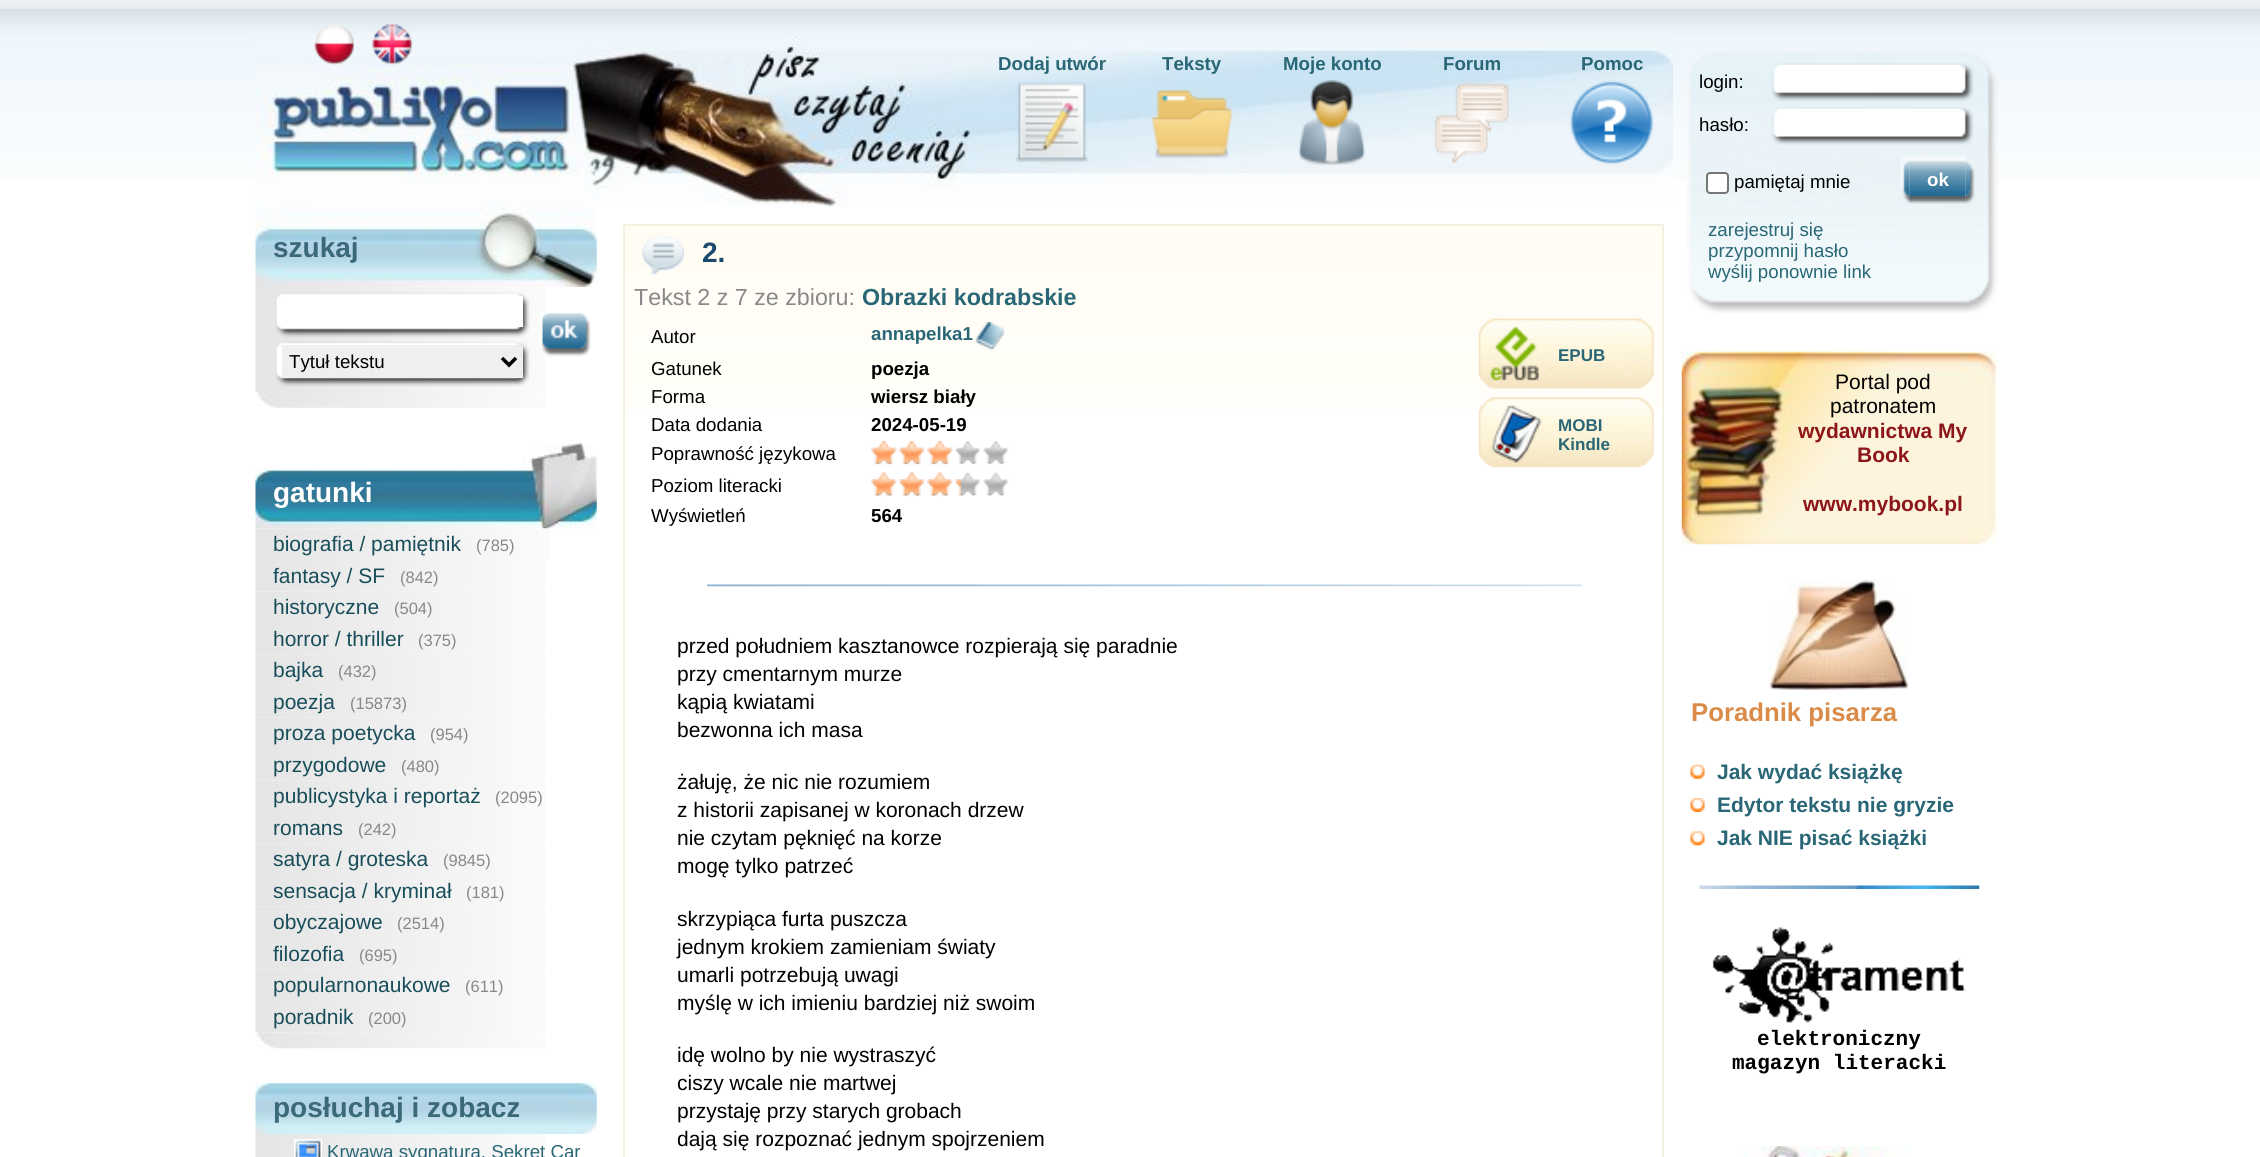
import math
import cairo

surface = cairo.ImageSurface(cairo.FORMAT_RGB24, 2260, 1157)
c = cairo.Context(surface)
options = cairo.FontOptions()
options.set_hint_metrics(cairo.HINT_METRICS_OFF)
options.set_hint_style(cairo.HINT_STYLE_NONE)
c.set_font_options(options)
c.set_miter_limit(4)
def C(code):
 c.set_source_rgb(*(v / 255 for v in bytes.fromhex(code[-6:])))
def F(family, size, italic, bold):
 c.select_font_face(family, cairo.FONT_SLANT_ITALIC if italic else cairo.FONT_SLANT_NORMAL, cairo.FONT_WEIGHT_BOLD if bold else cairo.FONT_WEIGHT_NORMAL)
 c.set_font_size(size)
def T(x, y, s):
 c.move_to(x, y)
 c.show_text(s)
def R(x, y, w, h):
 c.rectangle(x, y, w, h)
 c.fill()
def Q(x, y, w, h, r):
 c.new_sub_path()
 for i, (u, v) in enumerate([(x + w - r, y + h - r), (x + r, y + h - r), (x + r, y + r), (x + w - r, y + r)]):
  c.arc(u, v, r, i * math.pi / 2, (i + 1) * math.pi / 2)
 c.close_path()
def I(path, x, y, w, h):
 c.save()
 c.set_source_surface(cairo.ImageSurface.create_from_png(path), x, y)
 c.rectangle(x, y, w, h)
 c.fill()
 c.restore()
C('ffffff')
c.paint()
I('1.png',0,0,2260,181)
I('2.png',255,35,1418,172)
I('3.png',314,24,41,41)
I('4.png',372,24,41,41)
I('5.png',1015,82,74,81)
F('Liberation Sans',18.7,0,1)
C('296776')
T(998,70,'Dodaj utwór')
I('6.png',1151,89,82,70)
T(1162,70,'Teksty')
I('7.png',1298,80,68,85)
T(1283,70,'Moje konto')
I('8.png',1434,83,75,81)
T(1443,70,'Forum')
I('9.png',1569,80,85,85)
T(1581,70,'Pomoc')
I('10.png',255,206,342,81)
F('Liberation Sans',28,0,1)
C('3b6979')
T(273,257,'szukaj')
I('12.png',255,287,290,105)
I('11.png',541,313,50,44)
I('13.png',275,292,255,46)
C('ffffff')
R(517,296,6,31)
I('13.png',275,341,255,46)
C('efefef')
R(282,345,241,33)
c.new_path()
c.move_to(502,358)
c.line_to(509,365)
c.line_to(516,358)
C('000000')
c.set_line_width(3.5)
c.stroke()
F('Liberation Sans',18.7,0,0)
T(289,368,'Tytuł tekstu')
I('14.png',257,392,288,16)
I('15.png',255,442,342,87)
F('Liberation Sans',28,0,1)
C('ffffff')
T(273,502,'gatunki')
I('16.png',255,528,295,32)
F('Liberation Sans',21,0,0)
C('184d5a')
T(273,551,'biografia / pamiętnik')
F('Liberation Sans',16.5,0,0)
C('888888')
T(476,551,'(785)')
I('17.png',255,560,290,32)
F('Liberation Sans',21,0,0)
C('184d5a')
T(273,583,'fantasy / SF')
F('Liberation Sans',16.5,0,0)
C('888888')
T(400,583,'(842)')
I('18.png',255,591,290,32)
F('Liberation Sans',21,0,0)
C('184d5a')
T(273,614,'historyczne')
F('Liberation Sans',16.5,0,0)
C('888888')
T(394,614,'(504)')
I('17.png',255,623,290,32)
F('Liberation Sans',21,0,0)
C('184d5a')
T(273,646,'horror / thriller')
F('Liberation Sans',16.5,0,0)
C('888888')
T(418,646,'(375)')
I('18.png',255,654,290,32)
F('Liberation Sans',21,0,0)
C('184d5a')
T(273,677,'bajka')
F('Liberation Sans',16.5,0,0)
C('888888')
T(338,677,'(432)')
I('17.png',255,686,290,32)
F('Liberation Sans',21,0,0)
C('184d5a')
T(273,709,'poezja')
F('Liberation Sans',16.5,0,0)
C('888888')
T(350,709,'(15873)')
I('18.png',255,717,290,32)
F('Liberation Sans',21,0,0)
C('184d5a')
T(273,740,'proza poetycka')
F('Liberation Sans',16.5,0,0)
C('888888')
T(430,740,'(954)')
I('17.png',255,749,290,32)
F('Liberation Sans',21,0,0)
C('184d5a')
T(273,772,'przygodowe')
F('Liberation Sans',16.5,0,0)
C('888888')
T(401,772,'(480)')
I('18.png',255,780,290,32)
F('Liberation Sans',21,0,0)
C('184d5a')
T(273,803,'publicystyka i reportaż')
F('Liberation Sans',16.5,0,0)
C('888888')
T(495,803,'(2095)')
I('17.png',255,812,290,32)
F('Liberation Sans',21,0,0)
C('184d5a')
T(273,835,'romans')
F('Liberation Sans',16.5,0,0)
C('888888')
T(358,835,'(242)')
I('18.png',255,843,290,32)
F('Liberation Sans',21,0,0)
C('184d5a')
T(273,866,'satyra / groteska')
F('Liberation Sans',16.5,0,0)
C('888888')
T(443,866,'(9845)')
I('17.png',255,875,290,32)
F('Liberation Sans',21,0,0)
C('184d5a')
T(273,898,'sensacja / kryminał')
F('Liberation Sans',16.5,0,0)
C('888888')
T(466,898,'(181)')
I('18.png',255,906,290,32)
F('Liberation Sans',21,0,0)
C('184d5a')
T(273,929,'obyczajowe')
F('Liberation Sans',16.5,0,0)
C('888888')
T(397,929,'(2514)')
I('17.png',255,938,290,32)
F('Liberation Sans',21,0,0)
C('184d5a')
T(273,961,'filozofia')
F('Liberation Sans',16.5,0,0)
C('888888')
T(359,961,'(695)')
I('18.png',255,969,290,32)
F('Liberation Sans',21,0,0)
C('184d5a')
T(273,992,'popularnonaukowe')
F('Liberation Sans',16.5,0,0)
C('888888')
T(465,992,'(611)')
I('17.png',255,1001,290,32)
F('Liberation Sans',21,0,0)
C('184d5a')
T(273,1024,'poradnik')
F('Liberation Sans',16.5,0,0)
C('888888')
T(368,1024,'(200)')
I('19.png',256,1032,289,17)
I('20.png',255,1083,342,51)
F('Liberation Sans',28,0,1)
C('3b6979')
T(273,1117,'posłuchaj i zobacz')
I('21.png',255,1134,290,23)
I('22.png',294,1139,28,18)
F('Liberation Sans',18.7,0,0)
C('296776')
T(327,1158,'Krwawa sygnatura. Sekret Car')
I('23.png',625,226,1037,184)
c.rectangle(624,225,1039,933)
C('f3f1e0')
c.set_line_width(2)
c.stroke()
I('24.png',642,234,43,41)
F('Liberation Sans',28,0,1)
C('1a496d')
T(702,262,'2.')
F('Liberation Sans',23.25,0,0)
C('888888')
T(634,305,'Tekst 2 z 7 ze zbioru:')
F('Liberation Sans',23.25,0,1)
C('296776')
T(862,305,'Obrazki kodrabskie')
F('Liberation Sans',18.7,0,0)
C('000000')
T(651,343,'Autor')
F('Liberation Sans',18.7,0,1)
C('296776')
T(871,340,'annapelka1')
I('25.png',976,322,29,28)
F('Liberation Sans',18.7,0,0)
C('000000')
T(651,375,'Gatunek')
F('Liberation Sans',18.7,0,1)
T(871,375,'poezja')
F('Liberation Sans',18.7,0,0)
T(651,403,'Forma')
F('Liberation Sans',18.7,0,1)
T(871,403,'wiersz biały')
F('Liberation Sans',18.7,0,0)
T(651,431,'Data dodania')
F('Liberation Sans',18.7,0,1)
T(871,431,'2024-05-19')
F('Liberation Sans',18.7,0,0)
T(651,460,'Poprawność językowa')
I('26.png',871,441,138,24)
I('27.png',871,441,82,25)
T(651,492,'Poziom literacki')
I('28.png',871,472,138,24)
I('29.png',871,472,90,25)
T(651,522,'Wyświetleń')
F('Liberation Sans',18.7,0,1)
T(871,522,'564')
I('30.png',1478,318,176,71)
F('Liberation Sans',17,0,1)
C('296776')
T(1558,361,'EPUB')
I('31.png',1478,397,176,71)
T(1558,431,'MOBI')
T(1558,450,'Kindle')
I('32.png',707,584,875,3)
F('Liberation Sans',21,0,0)
C('000000')
T(677,653,'przed południem kasztanowce rozpierają się paradnie')
T(677,681,'przy cmentarnym murze')
T(677,709,'kąpią kwiatami')
T(677,737,'bezwonna ich masa')
T(677,789,'żałuję, że nic nie rozumiem')
T(677,817,'z historii zapisanej w koronach drzew')
T(677,845,'nie czytam pęknięć na korze')
T(677,873,'mogę tylko patrzeć')
T(677,926,'skrzypiąca furta puszcza')
T(677,954,'jednym krokiem zamieniam światy')
T(677,982,'umarli potrzebują uwagi')
T(677,1010,'myślę w ich imieniu bardziej niż swoim')
T(677,1062,'idę wolno by nie wystraszyć')
T(677,1090,'ciszy wcale nie martwej')
T(677,1118,'przystaję przy starych grobach')
T(677,1146,'dają się rozpoznać jednym spojrzeniem')
I('33.png',1686,52,313,261)
I('34.png',1771,63,203,38)
C('ffffff')
R(1778,65,182,2)
F('Liberation Sans',18.7,0,0)
C('000000')
T(1699,88,'login:')
I('35.png',1771,107,203,38)
C('ffffff')
R(1778,109,182,2)
C('000000')
T(1699,131,'hasło:')
C('ffffff')
Q(1707,173,21,20,3)
c.fill_preserve()
C('767676')
c.stroke()
C('000000')
T(1734,188,'pamiętaj mnie')
I('36.png',1900,155,10,48)
I('37.png',1909,155,57,49)
F('Liberation Sans',18.7,0,1)
C('ffffff')
T(1927,186,'ok')
I('38.png',1965,159,10,45)
F('Liberation Sans',18.7,0,0)
C('296776')
T(1708,236,'zarejestruj się')
T(1708,257,'przypomnij hasło')
T(1708,278,'wyślij ponownie link')
I('39.png',1681,351,316,194)
F('Liberation Sans',21,0,0)
C('000000')
T(1835,389,'Portal pod')
T(1830,413,'patronatem')
F('Liberation Sans',21,0,1)
C('8d161a')
T(1798,438,'wydawnictwa My')
T(1857,462,'Book')
T(1803,511,'www.mybook.pl')
I('40.png',1769,579,140,111)
F('Liberation Sans',25.75,0,1)
C('da8b48')
T(1691,721,'Poradnik pisarza')
I('41.png',1690,764,15,15)
F('Liberation Sans',21,0,1)
C('296776')
T(1717,779,'Jak wydać książkę')
I('42.png',1690,798,15,14)
T(1717,812,'Edytor tekstu nie gryzie')
I('43.png',1690,831,15,15)
T(1717,845,'Jak NIE pisać książki')
I('44.png',1699,885,281,4)
I('45.png',1712,927,254,96)
F('Liberation Mono',21,0,1)
C('000000')
T(1757,1045,'elektroniczny')
T(1732,1069,'magazyn literacki')
I('46.png',1743,1146,168,11)
surface.write_to_png('o.png')
